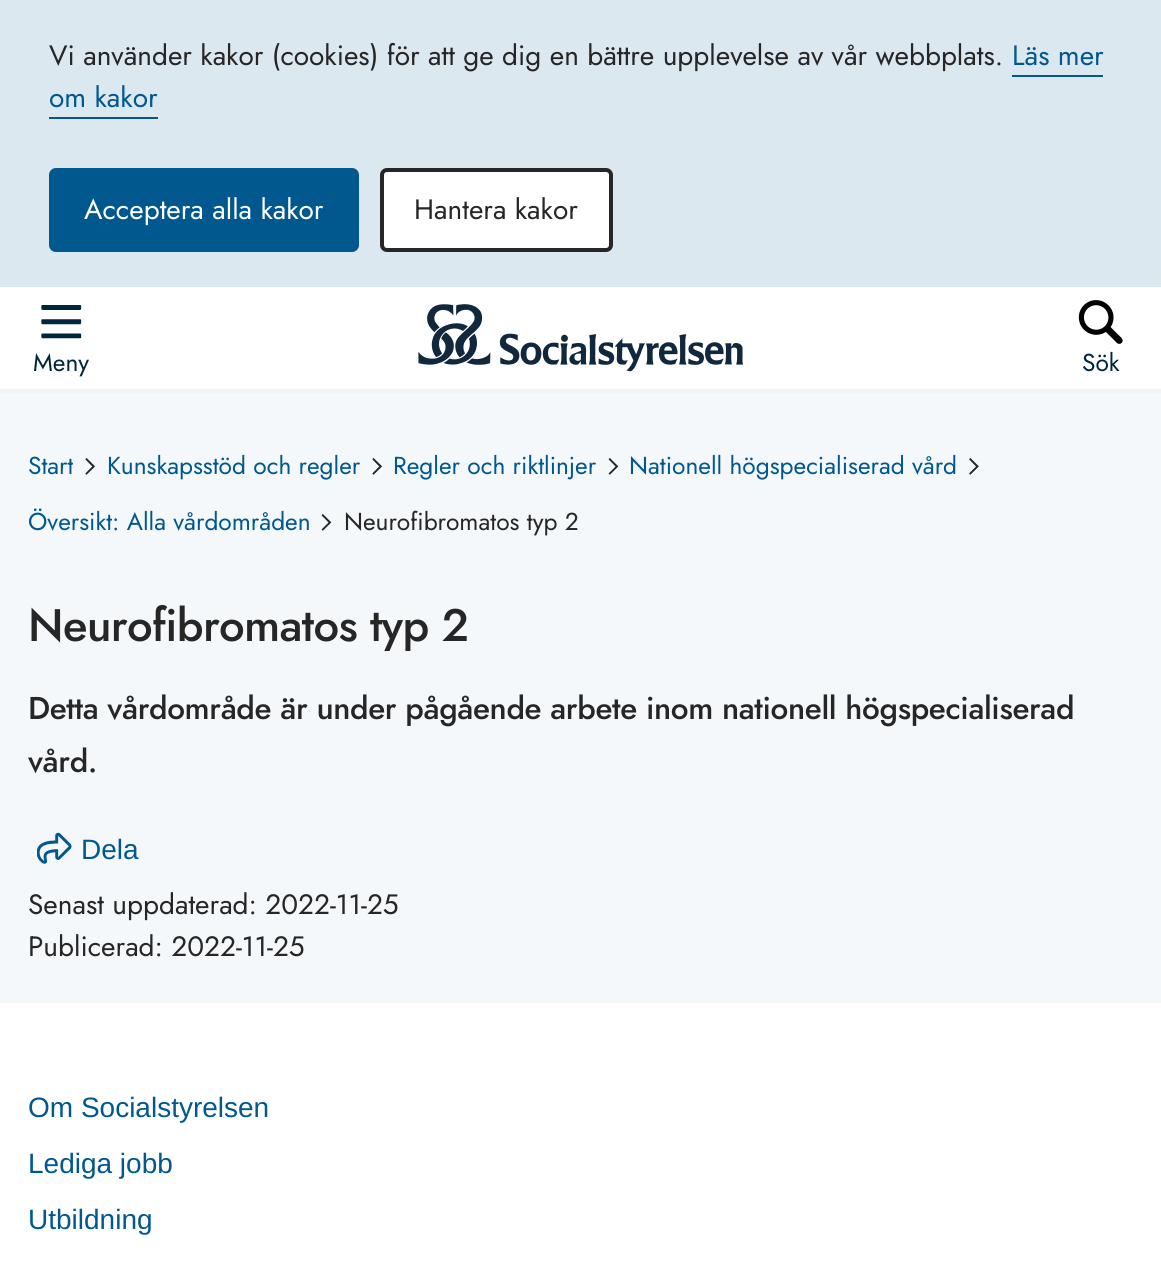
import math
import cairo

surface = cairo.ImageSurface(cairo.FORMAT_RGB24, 1161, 1265)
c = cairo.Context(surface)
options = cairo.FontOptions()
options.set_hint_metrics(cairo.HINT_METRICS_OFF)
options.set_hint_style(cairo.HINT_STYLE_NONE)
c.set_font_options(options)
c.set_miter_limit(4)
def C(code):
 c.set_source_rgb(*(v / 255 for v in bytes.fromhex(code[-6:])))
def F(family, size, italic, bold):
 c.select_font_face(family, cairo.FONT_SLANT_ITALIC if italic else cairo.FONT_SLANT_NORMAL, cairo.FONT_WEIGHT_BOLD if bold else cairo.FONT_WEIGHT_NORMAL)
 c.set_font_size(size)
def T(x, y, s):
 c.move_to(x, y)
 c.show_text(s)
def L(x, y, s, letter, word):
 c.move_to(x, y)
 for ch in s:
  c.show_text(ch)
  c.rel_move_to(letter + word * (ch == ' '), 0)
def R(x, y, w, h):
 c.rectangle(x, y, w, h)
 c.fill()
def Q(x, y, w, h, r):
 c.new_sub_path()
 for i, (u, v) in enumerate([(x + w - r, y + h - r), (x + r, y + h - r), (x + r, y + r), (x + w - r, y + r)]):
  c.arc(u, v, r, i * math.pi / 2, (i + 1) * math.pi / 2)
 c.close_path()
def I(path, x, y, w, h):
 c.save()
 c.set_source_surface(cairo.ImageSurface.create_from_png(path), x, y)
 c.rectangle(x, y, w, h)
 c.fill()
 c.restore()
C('f4f8fa')
c.paint()
C('dce8ef')
R(0,0,1161,287)
F('Jost',28,0,0)
C('262626')
T(49,65,'Vi använder kakor (cookies) för att ge dig en bättre upplevelse av vår webbplats.')
C('00588f')
T(1012,65,'Läs mer')
R(1012,75,91,2)
T(49,107,'om kakor')
R(49,117,109,2)
Q(49,168,310,84,7)
c.fill()
C('ffffff')
T(84,219,'Acceptera alla kakor')
Q(382,170,229,80,5)
c.fill_preserve()
C('262626')
c.set_line_width(4)
c.stroke()
T(414,219,'Hantera kakor')
C('ffffff')
R(0,287,1161,102)
C('f2f5f7')
R(0,389,1161,4)
I('1.png',41,305,41,34)
F('Jost',24.5,0,0)
C('00263e')
T(33,371,'Meny')
I('2.png',418,304,325,68)
I('3.png',1078,300,45,44)
T(1082,371,'Sök')
C('00588f')
T(28,474,'Start')
I('4.png',85,458,10,17)
T(107,474,'Kunskapsstöd och regler')
I('4.png',372,458,10,17)
T(393,474,'Regler och riktlinjer')
I('5.png',608,458,11,17)
T(629,474,'Nationell högspecialiserad vård')
I('6.png',969,458,10,17)
T(28,530,'Översikt: Alla vårdområden')
I('5.png',321,514,11,17)
C('262626')
T(344,530,'Neurofibromatos typ 2')
F('Jost Medium',45.5,0,0)
L(28,641,'Neurofibromatos typ 2',-.7,0)
F('Jost Medium',31.5,0,0)
L(28,719,'Detta vårdområde är under pågående arbete inom nationell högspecialiserad',-.35,0)
L(28,772,'vård.',-.35,0)
I('7.png',37,832,35,32)
F('Liberation Sans',28,0,0)
C('00588f')
T(81,859,'Dela')
F('Jost',28,0,0)
C('262626')
T(28,914,'Senast uppdaterad: 2022-11-25')
T(28,956,'Publicerad: 2022-11-25')
C('ffffff')
R(0,1003,1161,262)
F('Liberation Sans',28,0,0)
C('00588f')
T(28,1117,'Om Socialstyrelsen')
T(28,1173,'Lediga jobb')
T(28,1229,'Utbildning')
surface.write_to_png('o.png')
